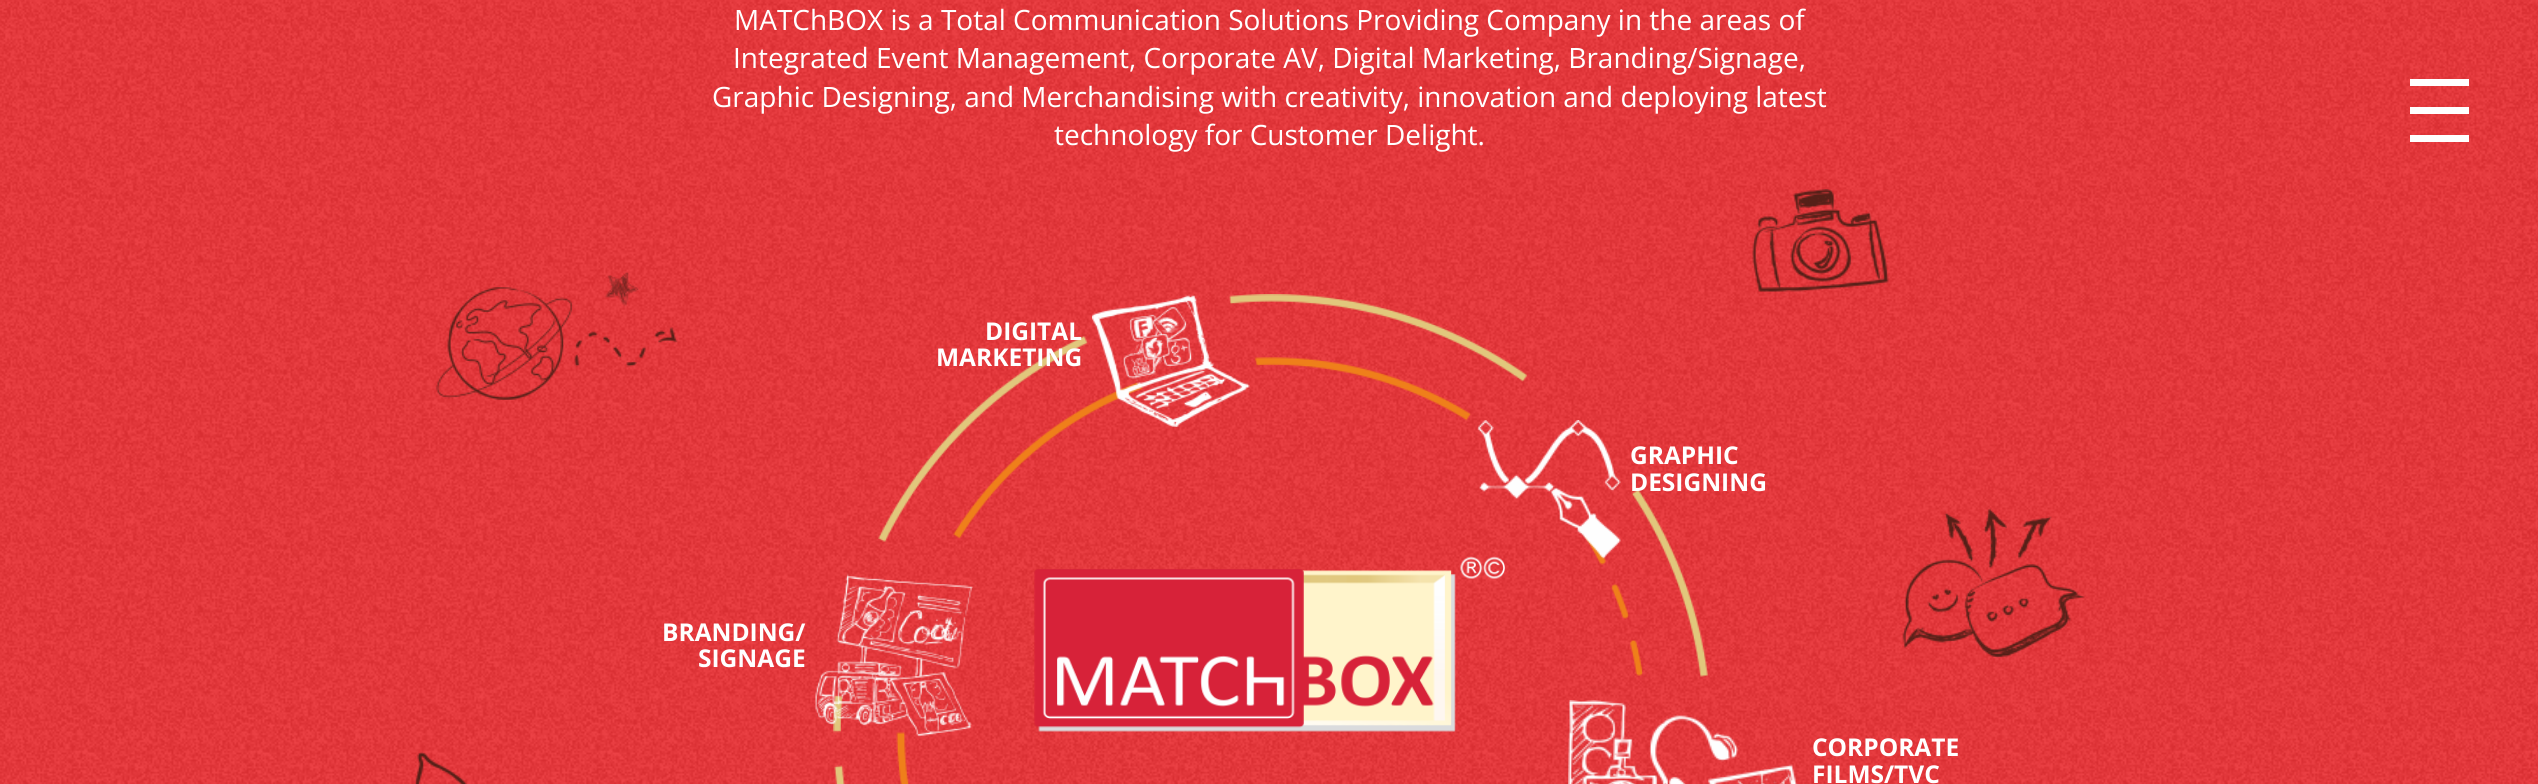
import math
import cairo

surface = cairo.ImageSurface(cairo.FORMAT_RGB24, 2538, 784)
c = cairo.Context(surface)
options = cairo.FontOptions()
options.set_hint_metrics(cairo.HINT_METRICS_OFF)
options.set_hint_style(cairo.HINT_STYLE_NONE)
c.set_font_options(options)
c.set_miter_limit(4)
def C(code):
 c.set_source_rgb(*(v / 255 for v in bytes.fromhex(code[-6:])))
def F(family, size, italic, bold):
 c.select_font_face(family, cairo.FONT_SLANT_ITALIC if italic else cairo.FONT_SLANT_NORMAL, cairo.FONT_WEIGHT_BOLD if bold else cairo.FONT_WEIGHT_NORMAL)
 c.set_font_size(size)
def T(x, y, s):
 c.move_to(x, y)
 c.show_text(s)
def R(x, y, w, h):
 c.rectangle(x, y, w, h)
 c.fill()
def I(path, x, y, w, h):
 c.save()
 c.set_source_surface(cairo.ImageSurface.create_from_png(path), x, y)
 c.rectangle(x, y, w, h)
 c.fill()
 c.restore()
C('ffffff')
c.paint()
I('1.png',0,0,2538,784)
F('Open Sans',28,0,0)
C('ffffff')
T(734,30,'MATChBOX is a Total Communication Solutions Providing Company in the areas of')
T(733,68,'Integrated Event Management, Corporate AV, Digital Marketing, Branding/Signage,')
T(712,107,'Graphic Designing, and Merchandising with creativity, innovation and deploying latest')
T(1054,145,'technology for Customer Delight.')
I('2.png',415,189,1670,595)
I('3.png',833,294,875,490)
F('Open Sans',24.5,0,1)
T(985,340,'DIGITAL')
T(936,366,'MARKETING')
I('4.png',1092,295,158,132)
I('8.png',1034,556,471,176)
I('5.png',1477,420,144,139)
T(1630,464,'GRAPHIC')
T(1630,491,'DESIGNING')
T(662,641,'BRANDING/')
T(698,667,'SIGNAGE')
I('6.png',815,573,158,164)
I('7.png',1568,700,230,84)
T(1812,756,'CORPORATE')
T(1812,783,'FILMS/TVC')
R(2410,79,59,7)
R(2410,107,59,7)
R(2410,135,59,7)
surface.write_to_png('o.png')
